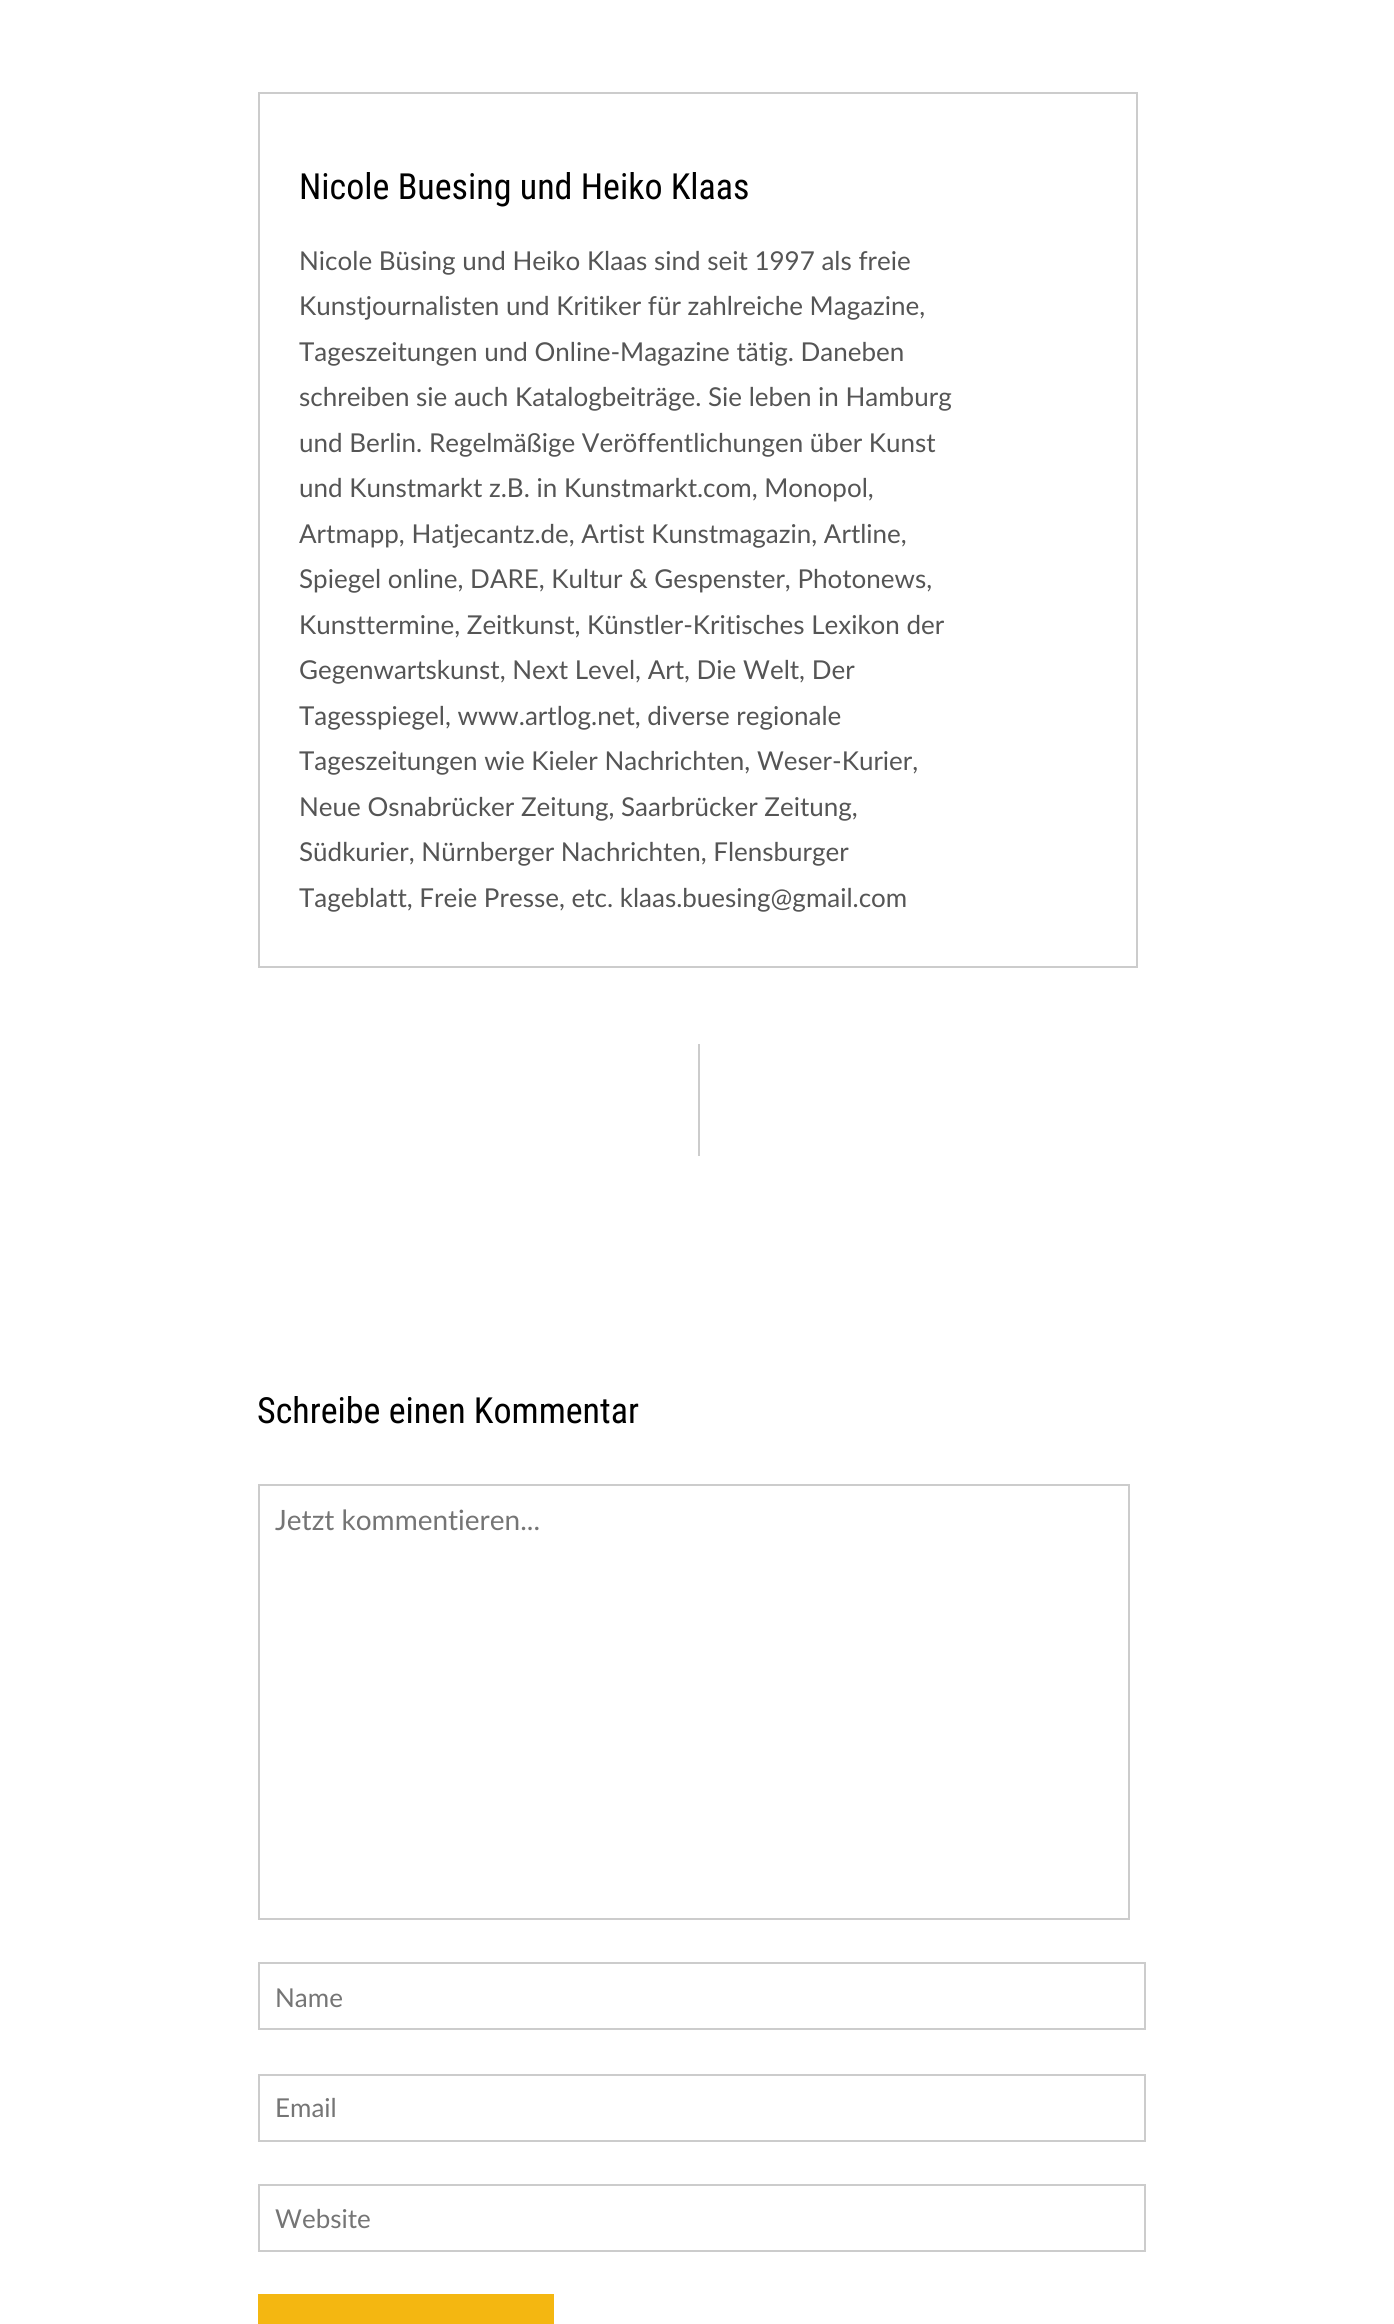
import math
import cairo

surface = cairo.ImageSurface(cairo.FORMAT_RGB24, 1394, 2324)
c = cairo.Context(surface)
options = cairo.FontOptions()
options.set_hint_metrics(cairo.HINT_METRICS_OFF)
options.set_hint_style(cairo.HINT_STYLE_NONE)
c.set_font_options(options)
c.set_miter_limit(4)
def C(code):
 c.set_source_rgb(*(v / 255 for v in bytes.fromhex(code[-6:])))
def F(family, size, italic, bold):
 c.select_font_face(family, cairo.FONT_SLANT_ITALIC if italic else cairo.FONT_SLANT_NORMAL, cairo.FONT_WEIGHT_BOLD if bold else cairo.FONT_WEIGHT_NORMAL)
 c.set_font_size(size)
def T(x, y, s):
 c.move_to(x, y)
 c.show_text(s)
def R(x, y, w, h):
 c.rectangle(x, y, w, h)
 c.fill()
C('ffffff')
c.paint()
c.rectangle(259,93,878,874)
C('cccccc')
c.stroke()
F('Roboto Condensed',36,0,0)
C('000000')
T(299,199,'Nicole Buesing und Heiko Klaas')
F('Lato',26,0,0)
C('555555')
T(299,270,'Nicole Büsing und Heiko Klaas sind seit 1997 als freie')
T(299,315,'Kunstjournalisten und Kritiker für zahlreiche Magazine,')
T(299,361,'Tageszeitungen und Online-Magazine tätig. Daneben')
T(299,406,'schreiben sie auch Katalogbeiträge. Sie leben in Hamburg')
T(299,452,'und Berlin. Regelmäßige Veröffentlichungen über Kunst')
T(299,497,'und Kunstmarkt z.B. in Kunstmarkt.com, Monopol,')
T(299,543,'Artmapp, Hatjecantz.de, Artist Kunstmagazin, Artline,')
T(299,588,'Spiegel online, DARE, Kultur & Gespenster, Photonews,')
T(299,634,'Kunsttermine, Zeitkunst, Künstler-Kritisches Lexikon der')
T(299,679,'Gegenwartskunst, Next Level, Art, Die Welt, Der')
T(299,725,'Tagesspiegel, www.artlog.net, diverse regionale')
T(299,770,'Tageszeitungen wie Kieler Nachrichten, Weser-Kurier,')
T(299,816,'Neue Osnabrücker Zeitung, Saarbrücker Zeitung,')
T(299,861,'Südkurier, Nürnberger Nachrichten, Flensburger')
T(299,907,'Tageblatt, Freie Presse, etc. klaas.buesing@gmail.com')
C('cccccc')
R(698,1044,2,112)
F('Roboto Condensed',36,0,0)
C('000000')
T(257,1423,'Schreibe einen Kommentar')
c.rectangle(259,1485,870,434)
C('cccccc')
c.stroke()
F('Lato',28,0,0)
C('757575')
T(275,1530,'Jetzt kommentieren...')
c.rectangle(259,1963,886,66)
C('cccccc')
c.stroke()
F('Lato',26,0,0)
C('757575')
T(275,2007,'Name')
c.rectangle(259,2075,886,66)
C('cccccc')
c.stroke()
C('757575')
T(275,2117,'Email')
c.rectangle(259,2185,886,66)
C('cccccc')
c.stroke()
C('757575')
T(275,2228,'Website')
C('f4b711')
R(258,2294,296,30)
surface.write_to_png('o.png')
